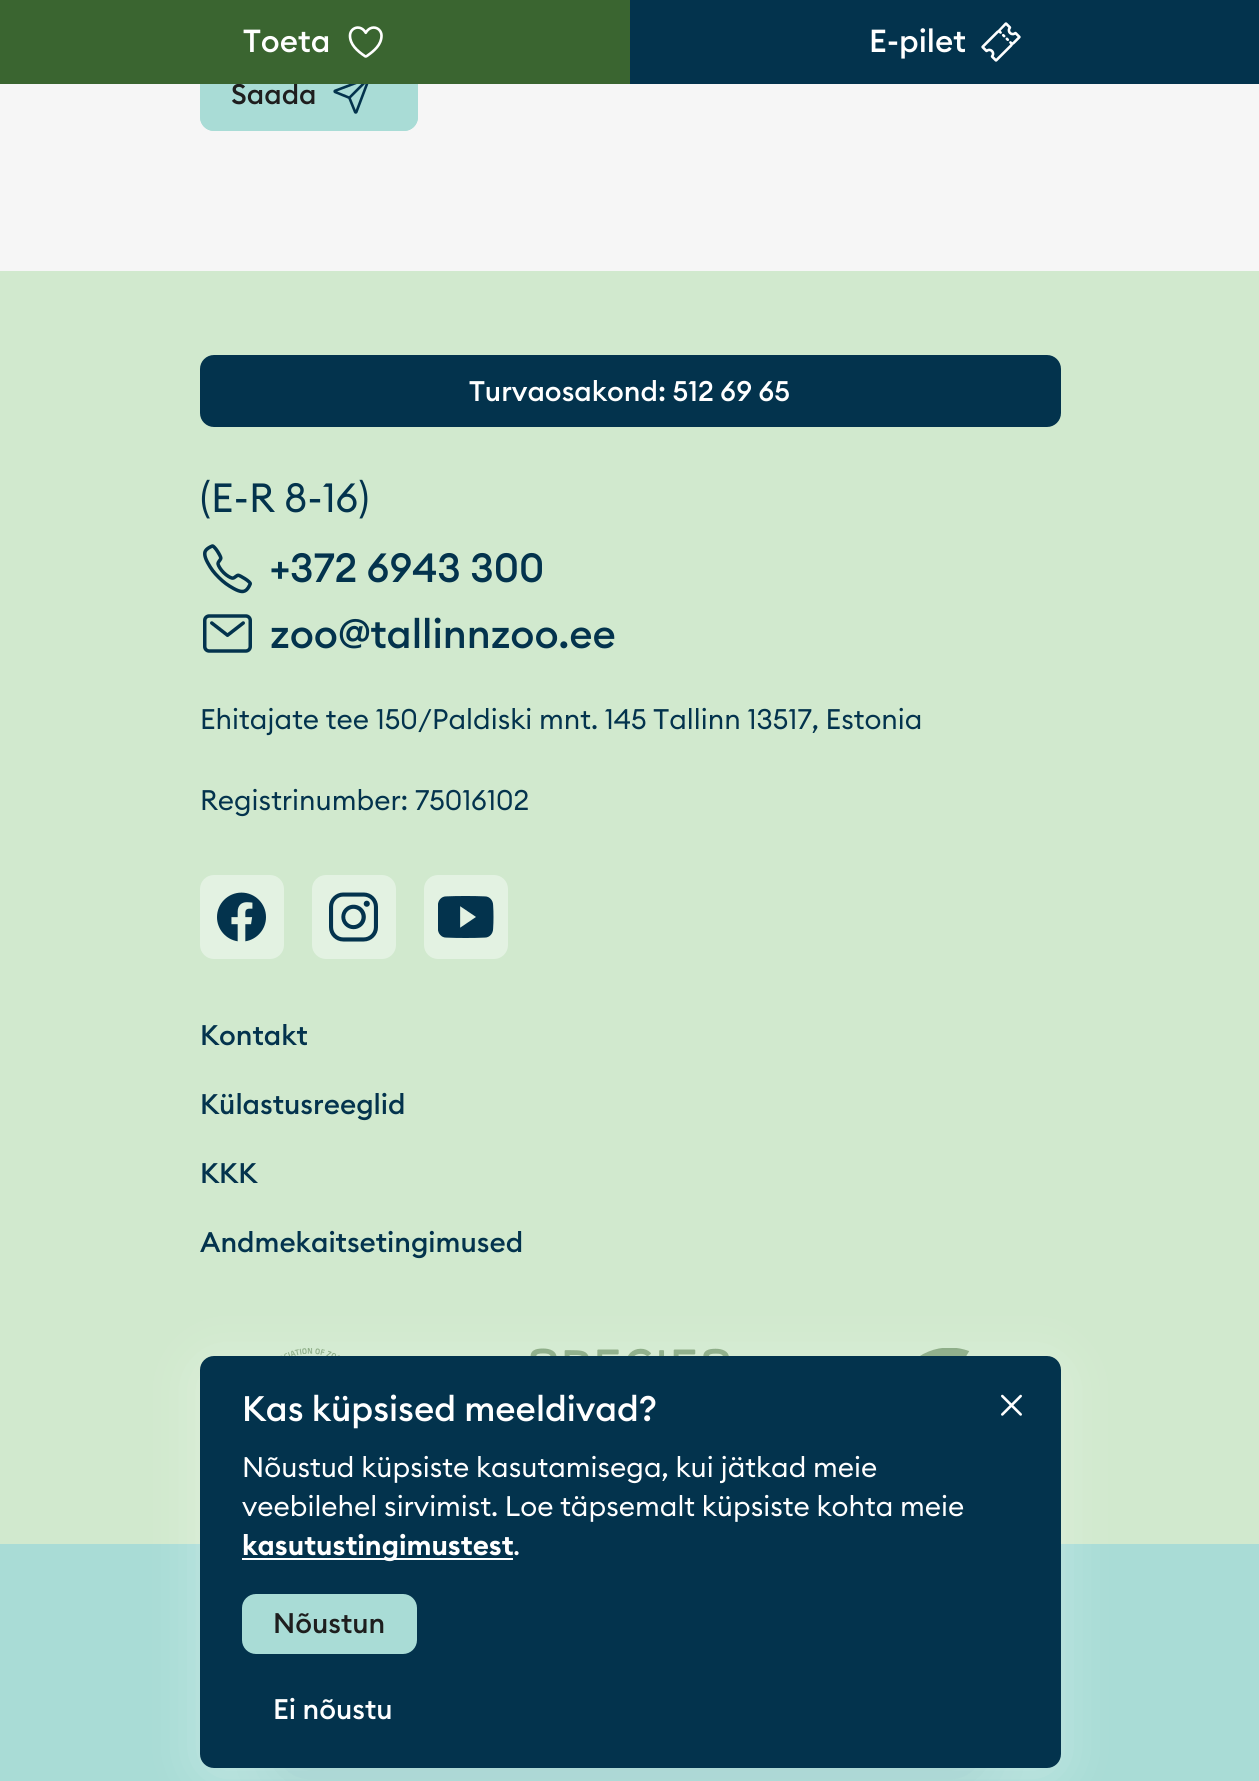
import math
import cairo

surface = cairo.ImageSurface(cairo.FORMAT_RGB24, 1259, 1781)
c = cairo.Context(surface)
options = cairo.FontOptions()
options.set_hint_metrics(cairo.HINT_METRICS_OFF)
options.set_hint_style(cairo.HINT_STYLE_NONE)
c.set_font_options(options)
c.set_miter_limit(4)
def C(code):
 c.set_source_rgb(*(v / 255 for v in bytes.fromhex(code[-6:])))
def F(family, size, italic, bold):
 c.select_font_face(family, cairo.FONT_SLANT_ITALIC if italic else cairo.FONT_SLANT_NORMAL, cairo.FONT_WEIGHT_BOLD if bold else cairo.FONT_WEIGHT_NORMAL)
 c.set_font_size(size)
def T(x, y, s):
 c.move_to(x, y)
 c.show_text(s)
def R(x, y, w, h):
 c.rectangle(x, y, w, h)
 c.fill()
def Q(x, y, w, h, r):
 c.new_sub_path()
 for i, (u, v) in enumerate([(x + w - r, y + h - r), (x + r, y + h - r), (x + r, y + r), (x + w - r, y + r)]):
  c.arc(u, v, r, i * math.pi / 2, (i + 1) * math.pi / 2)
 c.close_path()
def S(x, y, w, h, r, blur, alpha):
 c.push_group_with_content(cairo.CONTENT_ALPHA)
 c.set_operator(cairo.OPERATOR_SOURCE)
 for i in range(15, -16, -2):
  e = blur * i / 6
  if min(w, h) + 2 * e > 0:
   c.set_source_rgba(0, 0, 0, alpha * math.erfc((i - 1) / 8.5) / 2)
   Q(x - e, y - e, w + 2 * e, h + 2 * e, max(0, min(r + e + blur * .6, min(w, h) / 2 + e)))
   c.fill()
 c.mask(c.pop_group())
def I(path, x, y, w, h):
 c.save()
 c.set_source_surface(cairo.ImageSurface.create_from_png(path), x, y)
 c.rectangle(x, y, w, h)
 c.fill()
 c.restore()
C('f6f6f6')
c.paint()
C('a9dcd6')
Q(200,60,218,71,14)
c.fill()
I('3.png',333,84,36,30)
Q(202,62,214,67,12)
c.set_line_width(4)
c.stroke()
F('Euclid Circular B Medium',28,0,0)
C('1e1e1e')
T(231,104,'Saada')
C('3a6530')
R(0,0,630,84)
F('Euclid Circular B Medium',31.5,0,0)
C('ffffff')
T(243,52,'Toeta')
I('1.png',348,26,35,32)
C('03334d')
R(630,0,629,84)
C('ffffff')
T(869,52,'E-pilet')
I('2.png',981,22,40,40)
C('d1e9ce')
R(0,271,1259,1273)
C('03334d')
Q(202,357,857,68,12)
c.fill_preserve()
c.stroke()
F('Euclid Circular B Medium',28,0,0)
C('ffffff')
T(469,401,'Turvaosakond: 512 69 65')
F('Euclid Circular B',40.25,0,0)
C('03334d')
T(200,512,'(E-R 8-16)')
I('4.png',203,544,49,50)
F('Euclid Circular B Medium',40.25,0,0)
T(270,582,'+372 6943 300')
I('5.png',203,614,49,39)
T(270,648,'zoo@tallinnzoo.ee')
F('Euclid Circular B',28,0,0)
T(200,729,'Ehitajate tee 150/Paldiski mnt. 145 Tallinn 13517, Estonia')
T(200,810,'Registrinumber: 75016102')
C('e3f2e2')
Q(200,875,84,84,14)
c.fill()
I('6.png',217,892,49,50)
Q(312,875,84,84,14)
c.fill()
I('7.png',329,892,49,50)
Q(424,875,84,84,14)
c.fill()
I('8.png',438,896,56,42)
F('Euclid Circular B Medium',28,0,0)
C('03334d')
T(200,1045,'Kontakt')
T(200,1114,'Külastusreeglid')
T(200,1183,'KKK')
T(200,1252,'Andmekaitsetingimused')
I('9.png',280,1348,60,8)
I('10.png',530,1348,199,8)
I('11.png',920,1348,50,8)
C('a9dcd6')
R(0,1544,1259,237)
C('ffffff')
S(200,1363,861,412,14,26,.3)
C('03334d')
S(280,1680,700,95,14,26,.1)
C('03334d')
Q(200,1356,861,412,14)
c.fill()
F('Euclid Circular B Medium',35,0,0)
C('ffffff')
T(242,1421,'Kas küpsised meeldivad?')
F('Euclid Circular B',28,0,0)
T(242,1477,'Nõustud küpsiste kasutamisega, kui jätkad meie')
T(242,1516,'veebilehel sirvimist. Loe täpsemalt küpsiste kohta meie')
R(242,1558,271,2)
F('Euclid Circular B SemiBold',28,0,0)
T(242,1555,'kasutustingimustest')
F('Euclid Circular B',28,0,0)
T(513,1555,'.')
C('a9dcd6')
Q(244,1596,171,56,12)
c.fill_preserve()
c.stroke()
F('Euclid Circular B Medium',28,0,0)
C('1e1e1e')
T(273,1633,'Nõustun')
C('ffffff')
T(273,1719,'Ei nõustu')
I('12.png',1001,1394,21,22)
surface.write_to_png('o.png')
